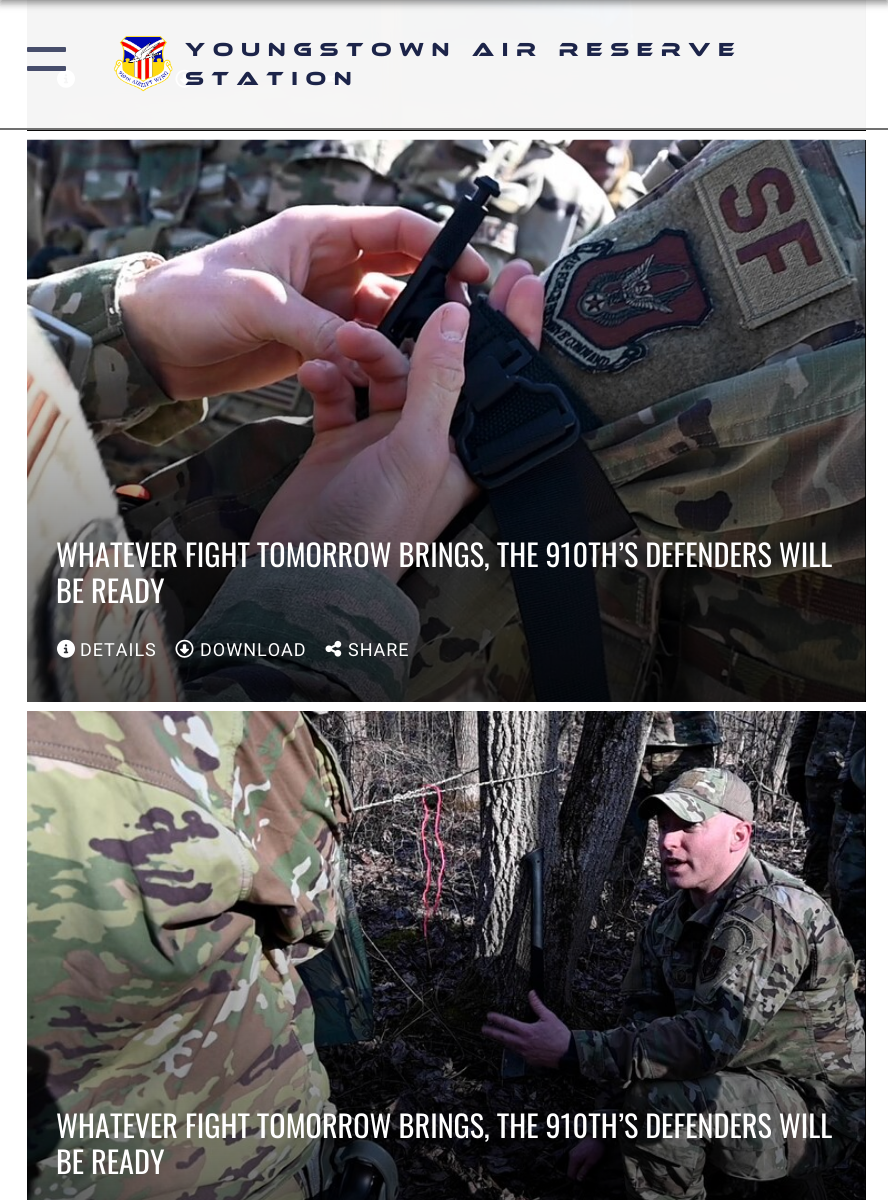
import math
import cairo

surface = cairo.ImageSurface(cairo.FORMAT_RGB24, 888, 1200)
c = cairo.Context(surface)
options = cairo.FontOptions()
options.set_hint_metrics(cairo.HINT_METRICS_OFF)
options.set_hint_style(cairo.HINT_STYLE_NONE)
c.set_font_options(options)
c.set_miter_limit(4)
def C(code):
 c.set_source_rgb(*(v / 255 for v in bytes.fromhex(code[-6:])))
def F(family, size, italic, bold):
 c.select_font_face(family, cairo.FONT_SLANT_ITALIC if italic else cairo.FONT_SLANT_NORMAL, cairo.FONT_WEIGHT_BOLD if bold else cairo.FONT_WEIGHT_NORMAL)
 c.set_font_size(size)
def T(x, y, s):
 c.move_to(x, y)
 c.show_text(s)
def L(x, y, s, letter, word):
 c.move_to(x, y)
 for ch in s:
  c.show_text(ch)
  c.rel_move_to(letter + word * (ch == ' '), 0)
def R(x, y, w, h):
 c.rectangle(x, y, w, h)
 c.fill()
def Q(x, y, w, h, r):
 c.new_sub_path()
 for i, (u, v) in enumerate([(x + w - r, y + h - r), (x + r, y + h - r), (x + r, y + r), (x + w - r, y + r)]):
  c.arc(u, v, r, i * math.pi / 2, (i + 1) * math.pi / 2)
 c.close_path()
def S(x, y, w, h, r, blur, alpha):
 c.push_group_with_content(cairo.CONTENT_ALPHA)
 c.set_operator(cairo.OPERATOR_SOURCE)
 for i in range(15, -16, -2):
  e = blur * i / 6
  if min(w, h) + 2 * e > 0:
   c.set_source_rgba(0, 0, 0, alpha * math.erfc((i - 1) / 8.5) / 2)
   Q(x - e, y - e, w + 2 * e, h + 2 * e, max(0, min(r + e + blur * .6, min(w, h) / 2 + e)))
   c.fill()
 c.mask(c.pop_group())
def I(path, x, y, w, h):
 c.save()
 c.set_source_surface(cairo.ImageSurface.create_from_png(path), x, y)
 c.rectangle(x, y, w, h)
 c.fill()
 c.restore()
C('ffffff')
c.paint()
C('000000')
R(27,0,839,131)
I('2.png',27,0,839,131)
gradient = cairo.LinearGradient(446,131,446,-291)
gradient.add_color_stop_rgba(0,0,0,0,.7)
gradient.add_color_stop_rgba(1,0,0,0,0)
c.set_source(gradient)
R(27,0,839,131)
I('3.png',57,69,18,19)
I('4.png',175,69,19,19)
I('5.png',325,70,17,17)
c.set_source_rgba(1,1,1,0.95)
R(27,0,839,128)
C('000000')
S(0,-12,888,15,0,4,.45)
C('707070')
R(0,128,888,2)
C('474e6b')
Q(27,47,39,5,1)
c.fill()
c.set_source_rgba(0.11,0.141,0.286,0.8)
Q(27,66,39,5,1)
c.fill()
I('1.png',113,35,60,57)
F('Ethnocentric',19.5,0,0)
C('1c2449')
L(185,56,'Youngstown Air Reserve',7.6,0)
L(185,85,'Station',7.6,0)
C('000000')
R(865,140,1,562)
I('6.png',27,139,839,563)
gradient = cairo.LinearGradient(446,702,446,281)
gradient.add_color_stop_rgba(0,0,0,0,.7)
gradient.add_color_stop_rgba(1,0,0,0,0)
c.set_source(gradient)
R(27,294,839,408)
F('Oswald',30.25,0,0)
C('ffffff')
T(56,567,'WHATEVER FIGHT TOMORROW BRINGS, THE 910TH’S DEFENDERS WILL')
T(56,603,'BE READY')
I('7.png',57,639,18,19)
F('Roboto',18,0,0)
L(80,656,'DETAILS',1,0)
I('8.png',175,639,19,19)
L(200,656,'DOWNLOAD',1,0)
I('9.png',325,640,17,17)
L(348,656,'SHARE',1,0)
C('000000')
R(865,711,1,489)
I('10.png',27,711,839,489)
gradient = cairo.LinearGradient(446,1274,446,852)
gradient.add_color_stop_rgba(0,0,0,0,.7)
gradient.add_color_stop_rgba(1,0,0,0,0)
c.set_source(gradient)
R(27,865,839,335)
F('Oswald',30.25,0,0)
C('ffffff')
T(56,1138,'WHATEVER FIGHT TOMORROW BRINGS, THE 910TH’S DEFENDERS WILL')
T(56,1174,'BE READY')
surface.write_to_png('o.png')
